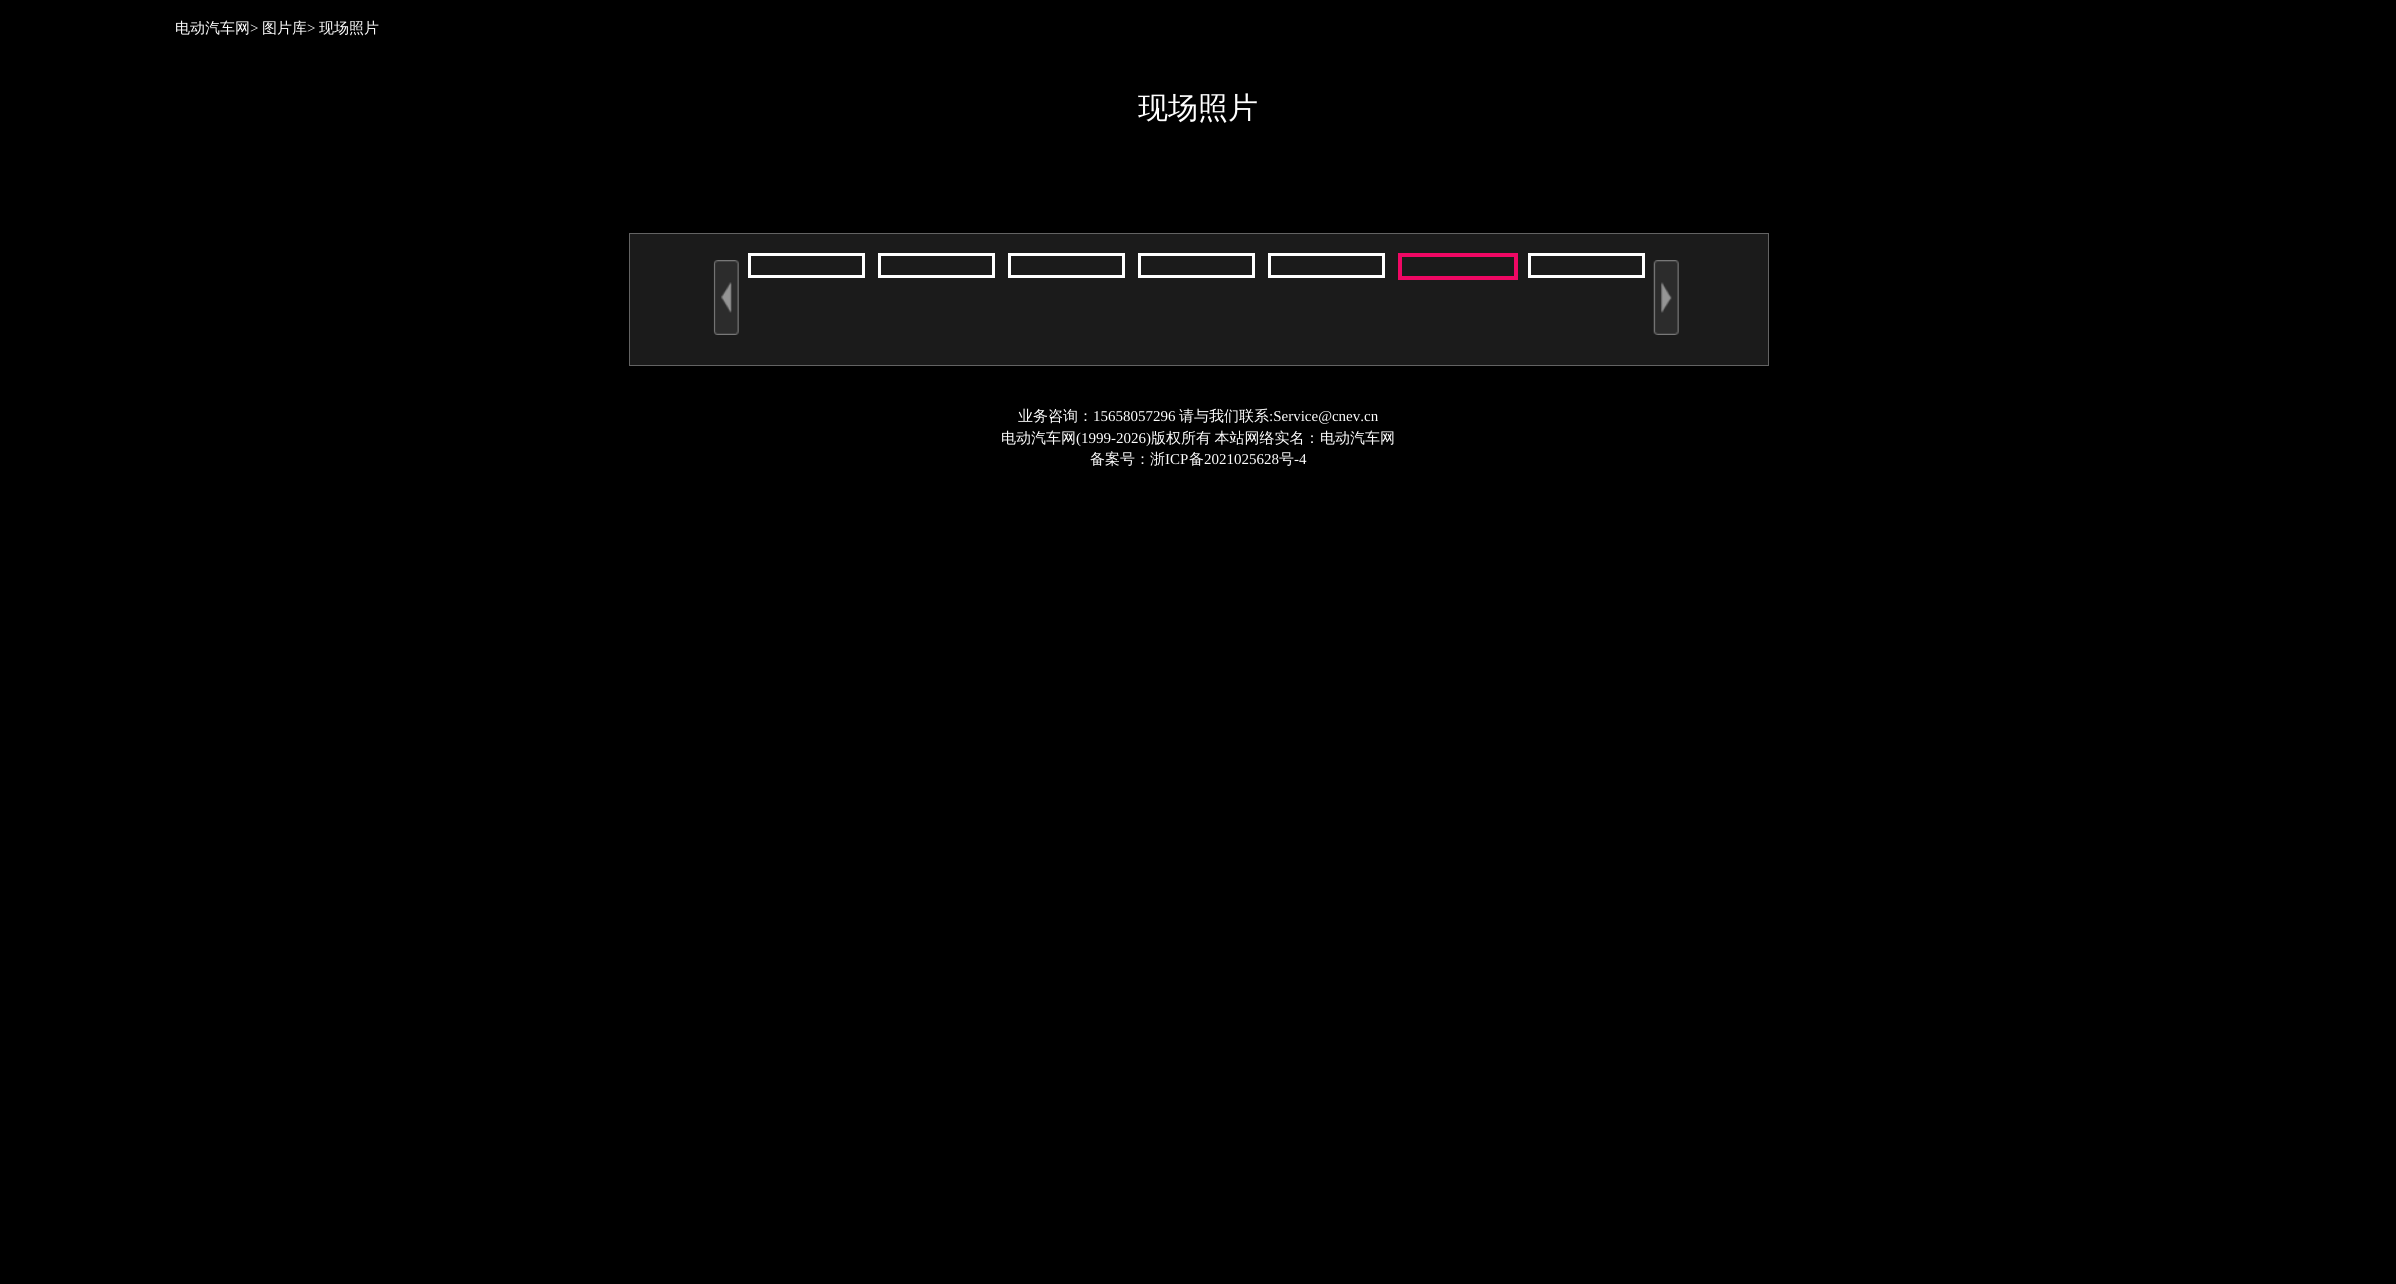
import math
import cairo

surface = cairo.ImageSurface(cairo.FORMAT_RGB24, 2396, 1284)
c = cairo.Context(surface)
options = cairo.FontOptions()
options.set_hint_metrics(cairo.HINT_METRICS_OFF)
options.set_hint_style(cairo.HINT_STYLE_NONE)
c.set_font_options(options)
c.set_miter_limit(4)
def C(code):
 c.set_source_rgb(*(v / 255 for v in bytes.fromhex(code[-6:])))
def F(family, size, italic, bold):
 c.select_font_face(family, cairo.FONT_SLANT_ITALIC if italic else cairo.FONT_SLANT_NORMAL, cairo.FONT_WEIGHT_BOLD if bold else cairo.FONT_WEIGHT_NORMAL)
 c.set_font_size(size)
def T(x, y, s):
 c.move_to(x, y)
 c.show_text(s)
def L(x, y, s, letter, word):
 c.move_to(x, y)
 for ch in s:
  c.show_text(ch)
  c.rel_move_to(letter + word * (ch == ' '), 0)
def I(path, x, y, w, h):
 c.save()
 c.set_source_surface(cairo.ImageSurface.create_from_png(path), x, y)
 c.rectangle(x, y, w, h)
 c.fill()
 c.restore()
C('000000')
c.paint()
F('WenQuanYi Zen Hei Medium',15,0,0)
C('ffffff')
T(175,33,'电动汽车网')
F('Liberation Serif',15,0,0)
T(250,33,'>')
F('WenQuanYi Zen Hei Medium',15,0,0)
T(262,33,'图片库')
F('Liberation Serif',15,0,0)
T(307,33,'>')
F('WenQuanYi Zen Hei Medium',15,0,0)
T(319,33,'现场照片')
F('WenQuanYi Zen Hei Medium',30,0,0)
T(1138,118,'现场照片')
C('1b1b1b')
c.rectangle(629.5,233.5,1139,132)
c.fill_preserve()
C('636363')
c.set_line_width(1)
c.stroke()
I('1.png',713,260,26,75)
c.rectangle(749.5,254.5,114,22)
C('ffffff')
c.set_line_width(3)
c.stroke()
c.rectangle(879.5,254.5,114,22)
c.stroke()
c.rectangle(1009.5,254.5,114,22)
c.stroke()
c.rectangle(1139.5,254.5,114,22)
c.stroke()
c.rectangle(1269.5,254.5,114,22)
c.stroke()
c.rectangle(1400,255,116,23)
C('ef0864')
c.set_line_width(4)
c.stroke()
c.rectangle(1529.5,254.5,114,22)
C('ffffff')
c.set_line_width(3)
c.stroke()
I('2.png',1653,260,26,75)
F('WenQuanYi Zen Hei Medium',15,0,0)
T(1018,421,'业务咨询：')
F('Liberation Serif',15,0,0)
T(1093,421,'15658057296')
F('WenQuanYi Zen Hei Medium',15,0,0)
T(1179,421,'请与我们联系')
F('Liberation Serif',15,0,0)
T(1269,421,':Service@cnev.cn')
F('WenQuanYi Zen Hei Medium',15,0,0)
T(1001,443,'电动汽车网')
F('Liberation Serif',15,0,0)
T(1076,443,'(1999-2026)')
F('WenQuanYi Zen Hei Medium',15,0,0)
L(1151,443,'版权所有 本站网络实名：',0,-1)
T(1320,443,'电动汽车网')
T(1090,464,'备案号：浙')
F('Liberation Serif',15,0,0)
T(1165,464,'ICP')
F('WenQuanYi Zen Hei Medium',15,0,0)
T(1189,464,'备')
F('Liberation Serif',15,0,0)
T(1204,464,'2021025628')
F('WenQuanYi Zen Hei Medium',15,0,0)
T(1279,464,'号')
F('Liberation Serif',15,0,0)
T(1294,464,'-4')
surface.write_to_png('o.png')
